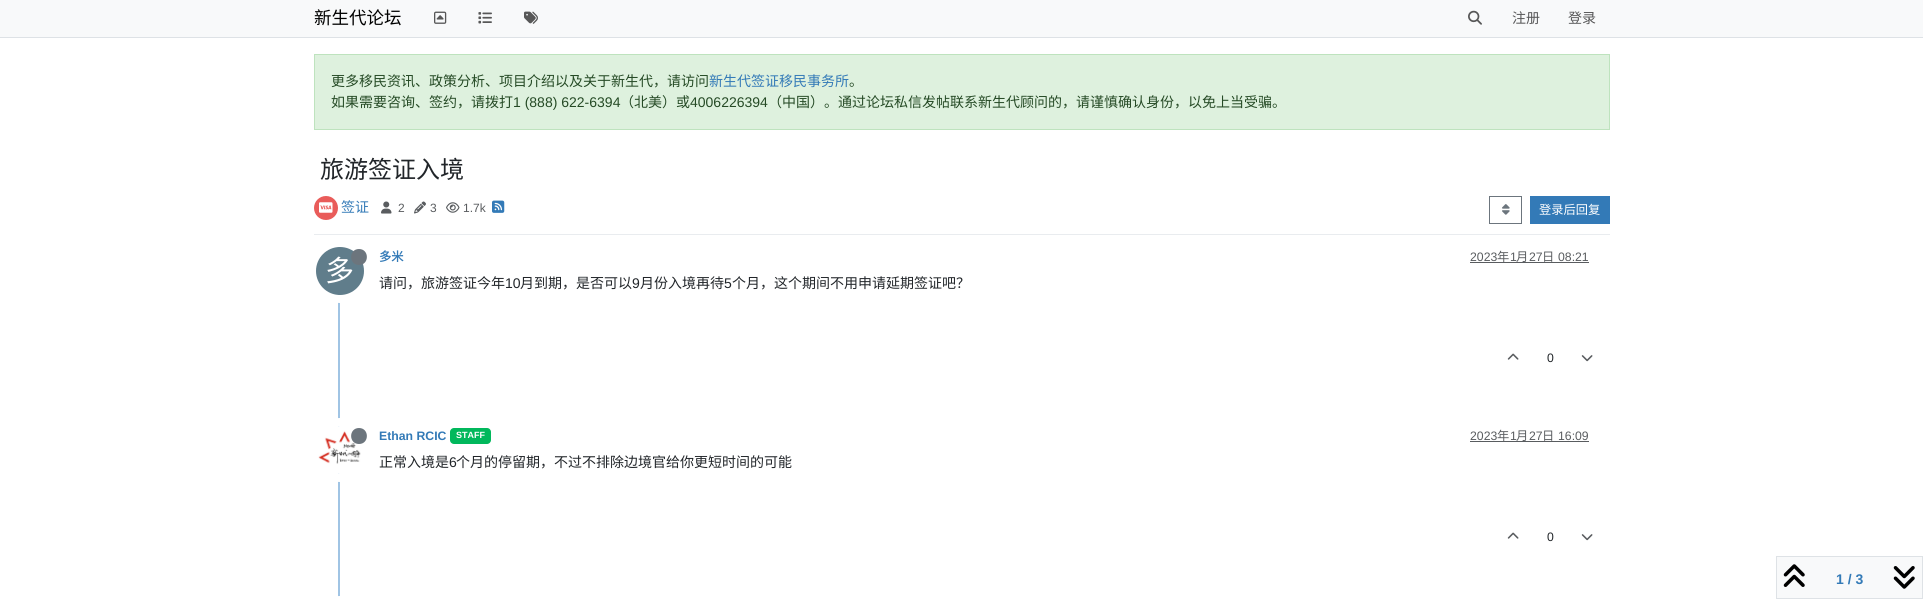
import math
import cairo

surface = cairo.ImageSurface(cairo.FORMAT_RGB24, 1923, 599)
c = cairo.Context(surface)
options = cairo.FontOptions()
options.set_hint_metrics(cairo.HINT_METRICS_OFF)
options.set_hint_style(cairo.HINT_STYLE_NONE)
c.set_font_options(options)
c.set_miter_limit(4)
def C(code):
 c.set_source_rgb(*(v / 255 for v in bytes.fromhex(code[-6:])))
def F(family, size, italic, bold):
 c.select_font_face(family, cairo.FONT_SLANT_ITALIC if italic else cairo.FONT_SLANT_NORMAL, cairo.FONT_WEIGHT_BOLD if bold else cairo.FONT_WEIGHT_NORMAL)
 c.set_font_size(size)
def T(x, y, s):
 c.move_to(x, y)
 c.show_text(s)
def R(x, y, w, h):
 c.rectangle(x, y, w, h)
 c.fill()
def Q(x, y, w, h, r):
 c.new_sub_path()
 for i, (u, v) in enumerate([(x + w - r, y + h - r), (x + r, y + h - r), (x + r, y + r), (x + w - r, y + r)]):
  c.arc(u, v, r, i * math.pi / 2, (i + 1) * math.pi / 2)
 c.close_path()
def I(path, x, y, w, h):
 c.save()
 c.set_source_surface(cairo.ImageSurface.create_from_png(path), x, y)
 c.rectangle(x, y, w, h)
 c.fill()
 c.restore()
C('ffffff')
c.paint()
C('f8f9fa')
R(0,0,1923,37)
C('dee2e6')
R(0,37,1923,1)
F('Noto Sans CJK SC',17.5,0,0)
C('000000')
T(314,24,'新生代论坛')
I('1.png',434,11,13,13)
I('2.png',478,12,14,12)
I('3.png',524,11,14,13)
I('4.png',1468,10,14,15)
F('Noto Sans CJK SC',14,0,0)
C('575758')
T(1512,23,'注册')
T(1568,23,'登录')
C('def1de')
c.rectangle(314.5,54.5,1295,75)
c.fill_preserve()
C('bee3be')
c.set_line_width(1)
c.stroke()
C('254a25')
T(331,86,'更多移民资讯、政策分析、项目介绍以及关于新生代，请访问')
C('337ab7')
T(709,86,'新生代签证移民事务所')
C('254a25')
T(849,86,'。')
T(331,107,'如果需要咨询、签约，请拨打')
F('Liberation Sans',14,0,0)
T(513,107,'1 (888) 622-6394')
F('Noto Sans CJK SC',14,0,0)
T(620,107,'（北美）或')
F('Liberation Sans',14,0,0)
T(690,107,'4006226394')
F('Noto Sans CJK SC',14,0,0)
T(768,107,'（中国）。通过论坛私信发帖联系新生代顾问的，请谨慎确认身份，以免上当受骗。')
F('Noto Sans CJK SC',24,0,0)
C('212529')
T(320,178,'旅游签证入境')
C('e9ecef')
R(314,234,1296,1)
C('e95c5a')
c.new_path()
c.arc(326,208,12,0,2 * math.pi)
c.fill()
I('5.png',319,202,14,11)
F('Noto Sans CJK SC',14,0,0)
C('337ab7')
T(341,212,'签证')
I('6.png',381,201,11,13)
F('Liberation Sans',12,0,0)
C('595c5f')
T(398,212,'2')
I('7.png',414,201,12,13)
T(430,212,'3')
I('8.png',446,202,14,11)
T(463,212,'1.7k')
I('9.png',492,200,13,13)
c.rectangle(1489.5,196.5,32,27)
C('6c757d')
c.stroke()
I('10.png',1502,204,8,11)
C('337ab7')
R(1530,196,80,28)
F('Noto Sans CJK SC',12.25,0,0)
C('ffffff')
T(1539,214,'登录后回复')
C('a0c4e4')
R(338,245,2,354)
c.new_path()
c.arc(340,271,28,0,2 * math.pi)
C('ffffff')
c.set_line_width(8)
c.stroke()
C('607d8b')
c.arc(340,271,24,0,2 * math.pi)
c.fill()
F('Noto Sans CJK SC',29,0,0)
C('ffffff')
T(325,281,'多')
C('6c757d')
c.new_path()
c.move_to(359,265)
c.curve_to(369.5,265,369.5,249,359,249)
c.curve_to(348.5,249,348.5,265,359,265)
c.close_path()
c.fill()
F('Noto Sans CJK SC',12.25,0,1)
C('337ab7')
T(379,261,'多米')
F('Liberation Sans',12.25,0,0)
C('595c5f')
T(1470,261,'2023')
R(1470,262,119,1)
F('Noto Sans CJK SC',12.25,0,0)
T(1497,261,'年')
F('Liberation Sans',12.25,0,0)
T(1510,261,'1')
F('Noto Sans CJK SC',12.25,0,0)
T(1516,261,'月')
F('Liberation Sans',12.25,0,0)
T(1529,261,'27')
F('Noto Sans CJK SC',12.25,0,0)
T(1542,261,'日')
F('Liberation Sans',12.25,0,0)
T(1558,261,'08:21')
F('Noto Sans CJK SC',14,0,0)
C('212529')
T(379,288,'请问，旅游签证今年')
F('Liberation Sans',14,0,0)
T(505,288,'10')
F('Noto Sans CJK SC',14,0,0)
T(520,288,'月到期，是否可以')
F('Liberation Sans',14,0,0)
T(632,288,'9')
F('Noto Sans CJK SC',14,0,0)
T(640,288,'月份入境再待')
F('Liberation Sans',14,0,0)
T(724,288,'5')
F('Noto Sans CJK SC',14,0,0)
T(732,288,'个月，这个期间不用申请延期签证吧？')
I('11.png',1507,353,12,7)
F('Liberation Sans',12.25,0,0)
T(1547,362,'0')
I('12.png',1581,355,12,7)
c.arc(340,450,28,0,2 * math.pi)
C('ffffff')
c.stroke()
I('13.png',318,426,43,48)
C('6c757d')
c.new_path()
c.move_to(359,444)
c.curve_to(369.5,444,369.5,428,359,428)
c.curve_to(348.5,428,348.5,444,359,444)
c.close_path()
c.fill()
F('Liberation Sans',12.25,0,1)
C('337ab7')
T(379,440,'Ethan RCIC')
C('01b85c')
Q(450,428,41,16,4)
c.fill()
F('Liberation Sans',9,0,1)
C('ffffff')
T(456,438,'STAFF')
F('Liberation Sans',12.25,0,0)
C('595c5f')
T(1470,440,'2023')
R(1470,441,119,1)
F('Noto Sans CJK SC',12.25,0,0)
T(1497,440,'年')
F('Liberation Sans',12.25,0,0)
T(1510,440,'1')
F('Noto Sans CJK SC',12.25,0,0)
T(1516,440,'月')
F('Liberation Sans',12.25,0,0)
T(1529,440,'27')
F('Noto Sans CJK SC',12.25,0,0)
T(1542,440,'日')
F('Liberation Sans',12.25,0,0)
T(1558,440,'16:09')
F('Noto Sans CJK SC',14,0,0)
C('212529')
T(379,467,'正常入境是')
F('Liberation Sans',14,0,0)
T(449,467,'6')
F('Noto Sans CJK SC',14,0,0)
T(456,467,'个月的停留期，不过不排除边境官给你更短时间的可能')
I('11.png',1507,532,12,7)
F('Liberation Sans',12.25,0,0)
T(1547,541,'0')
I('12.png',1581,534,12,7)
Q(312,600,56,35,28)
C('ffffff')
c.stroke()
C('f8f9fa')
c.rectangle(1776.5,556.5,146,42)
c.fill_preserve()
C('dee2e6')
c.set_line_width(1)
c.stroke()
I('14.png',1783,564,22,23)
F('Liberation Sans',14,0,1)
C('337ab7')
T(1836,584,'1 / 3')
I('15.png',1893,566,22,23)
surface.write_to_png('o.png')
